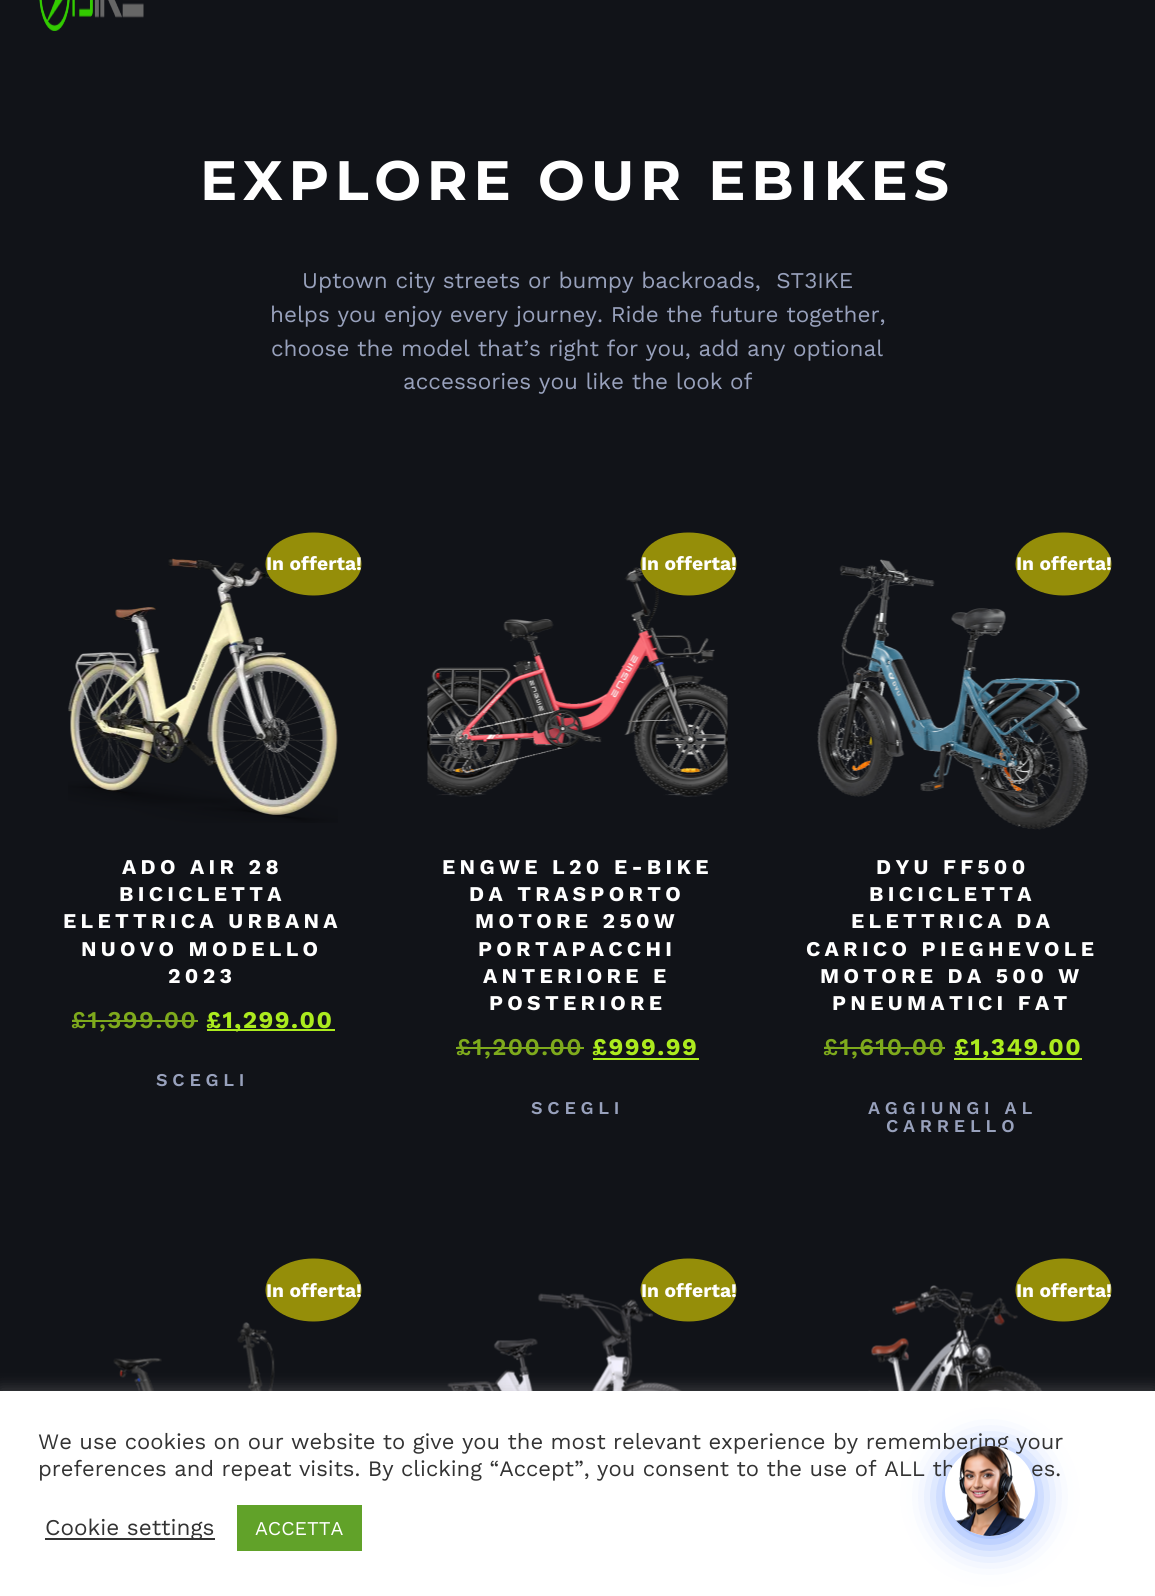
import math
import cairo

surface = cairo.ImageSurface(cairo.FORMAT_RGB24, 1155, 1596)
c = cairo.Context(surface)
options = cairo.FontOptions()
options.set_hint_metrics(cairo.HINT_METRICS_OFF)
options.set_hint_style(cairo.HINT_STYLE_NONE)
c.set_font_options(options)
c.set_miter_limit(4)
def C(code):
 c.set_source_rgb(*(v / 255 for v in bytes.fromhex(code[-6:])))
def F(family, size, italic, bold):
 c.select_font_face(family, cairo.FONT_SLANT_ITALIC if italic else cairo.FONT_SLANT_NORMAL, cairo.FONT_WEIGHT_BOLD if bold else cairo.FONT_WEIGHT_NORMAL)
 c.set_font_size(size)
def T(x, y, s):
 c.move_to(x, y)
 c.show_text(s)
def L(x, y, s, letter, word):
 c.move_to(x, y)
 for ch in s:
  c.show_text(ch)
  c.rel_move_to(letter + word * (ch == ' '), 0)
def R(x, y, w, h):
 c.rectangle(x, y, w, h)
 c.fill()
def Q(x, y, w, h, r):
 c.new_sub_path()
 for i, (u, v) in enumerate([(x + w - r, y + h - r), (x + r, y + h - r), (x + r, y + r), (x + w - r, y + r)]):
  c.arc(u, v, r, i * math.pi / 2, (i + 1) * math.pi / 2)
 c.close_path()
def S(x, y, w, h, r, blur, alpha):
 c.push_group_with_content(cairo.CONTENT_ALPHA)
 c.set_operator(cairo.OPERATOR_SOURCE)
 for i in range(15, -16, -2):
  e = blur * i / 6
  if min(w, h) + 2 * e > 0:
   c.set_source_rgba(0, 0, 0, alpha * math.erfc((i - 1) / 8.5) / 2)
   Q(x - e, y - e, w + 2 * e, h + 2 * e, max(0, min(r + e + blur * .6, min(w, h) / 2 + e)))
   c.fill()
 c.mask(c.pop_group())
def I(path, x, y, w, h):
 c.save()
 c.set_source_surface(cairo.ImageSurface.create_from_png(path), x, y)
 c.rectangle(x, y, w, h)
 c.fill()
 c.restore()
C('111318')
c.paint()
I('1.png',39,0,105,31)
F('Montserrat',55.5,0,1)
C('ffffff')
L(200,200,'EXPLORE OUR EBIKES',5.8,0)
F('Work Sans',22.5,0,0)
C('98a1bc')
T(302,288,'Uptown city streets or bumpy backroads,  ST3IKE')
T(270,322,'helps you enjoy every journey. Ride the future together,')
T(271,356,'choose the model that’s right for you, add any optional')
T(403,389,'accessories you like the look of')
I('2.png',68,558,270,265)
C('958e09')
c.new_path()
c.move_to(313.5,532.5)
c.curve_to(340,532.5,361.5,546.5,361.5,564)
c.curve_to(361.5,581.5,340,595.5,313.5,595.5)
c.curve_to(287,595.5,265.5,581.5,265.5,564)
c.curve_to(265.5,546.5,287,532.5,313.5,532.5)
c.close_path()
c.fill()
F('Work Sans',19.25,0,1)
C('ffffff')
T(266,570,'In offerta!')
F('Work Sans',21,0,1)
L(122,874,'ADO AIR 28',4.3,0)
L(119,901,'BICICLETTA',4.3,0)
L(63,928,'ELETTRICA URBANA',4.3,0)
L(81,956,'NUOVO MODELLO',4.3,0)
L(168,983,'2023',4.3,0)
F('Work Sans SemiBold',24,0,0)
C('7eaa1c')
L(71,1028,'£1,399.00',1.5,0)
R(72,1020,126,2)
C('aceb1e')
R(207,1029,128,2)
F('Work Sans',24,0,1)
L(206,1028,'£1,299.00',1.5,0)
F('Work Sans SemiBold',18,0,0)
C('98a1bc')
L(156,1086,'SCEGLI',4.75,0)
I('3.png',427,567,301,230)
C('958e09')
c.new_path()
c.move_to(688.5,532.5)
c.curve_to(715,532.5,736.5,546.5,736.5,564)
c.curve_to(736.5,581.5,715,595.5,688.5,595.5)
c.curve_to(662,595.5,640.5,581.5,640.5,564)
c.curve_to(640.5,546.5,662,532.5,688.5,532.5)
c.close_path()
c.fill()
F('Work Sans',19.25,0,1)
C('ffffff')
T(641,570,'In offerta!')
F('Work Sans',21,0,1)
L(442,874,'ENGWE L20 E-BIKE',4.3,0)
L(469,901,'DA TRASPORTO',4.3,0)
L(475,928,'MOTORE 250W',4.3,0)
L(478,956,'PORTAPACCHI',4.3,0)
L(483,983,'ANTERIORE E',4.3,0)
L(489,1010,'POSTERIORE',4.3,0)
F('Work Sans SemiBold',24,0,0)
C('7eaa1c')
L(456,1055,'£1,200.00',1.5,0)
R(456,1047,128,2)
F('Work Sans',24,0,1)
C('aceb1e')
L(592,1055,'£999.99',1.5,0)
R(593,1058,106,2)
F('Work Sans SemiBold',18,0,0)
C('98a1bc')
L(531,1114,'SCEGLI',4.75,0)
I('4.png',817,559,272,271)
C('958e09')
c.new_path()
c.move_to(1063.5,532.5)
c.curve_to(1090,532.5,1111.5,546.5,1111.5,564)
c.curve_to(1111.5,581.5,1090,595.5,1063.5,595.5)
c.curve_to(1037,595.5,1015.5,581.5,1015.5,564)
c.curve_to(1015.5,546.5,1037,532.5,1063.5,532.5)
c.close_path()
c.fill()
F('Work Sans',19.25,0,1)
C('ffffff')
T(1016,570,'In offerta!')
F('Work Sans',21,0,1)
L(876,874,'DYU FF500',4.3,0)
L(869,901,'BICICLETTA',4.3,0)
L(851,928,'ELETTRICA DA',4.3,0)
L(806,956,'CARICO PIEGHEVOLE',4.3,0)
L(820,983,'MOTORE DA 500 W',4.3,0)
L(832,1010,'PNEUMATICI FAT',4.3,0)
F('Work Sans SemiBold',24,0,0)
C('7eaa1c')
L(823,1055,'£1,610.00',1.5,0)
R(824,1047,121,2)
C('aceb1e')
R(954,1058,128,2)
F('Work Sans',24,0,1)
L(954,1055,'£1,349.00',1.5,0)
F('Work Sans SemiBold',18,0,0)
C('98a1bc')
L(868,1114,'AGGIUNGI AL',4.75,0)
L(886,1132,'CARRELLO',4.75,0)
C('958e09')
c.new_path()
c.move_to(313.5,1258.5)
c.curve_to(340,1258.5,361.5,1272.5,361.5,1290)
c.curve_to(361.5,1307.5,340,1321.5,313.5,1321.5)
c.curve_to(287,1321.5,265.5,1307.5,265.5,1290)
c.curve_to(265.5,1272.5,287,1258.5,313.5,1258.5)
c.close_path()
c.fill()
F('Work Sans',19.25,0,1)
C('ffffff')
T(266,1297,'In offerta!')
I('5.png',113,1322,162,69)
I('6.png',447,1293,236,98)
C('958e09')
c.new_path()
c.move_to(688.5,1258.5)
c.curve_to(715,1258.5,736.5,1272.5,736.5,1290)
c.curve_to(736.5,1307.5,715,1321.5,688.5,1321.5)
c.curve_to(662,1321.5,640.5,1307.5,640.5,1290)
c.curve_to(640.5,1272.5,662,1258.5,688.5,1258.5)
c.close_path()
c.fill()
C('ffffff')
T(641,1297,'In offerta!')
I('7.png',868,1285,176,106)
C('958e09')
c.new_path()
c.move_to(1063.5,1258.5)
c.curve_to(1090,1258.5,1111.5,1272.5,1111.5,1290)
c.curve_to(1111.5,1307.5,1090,1321.5,1063.5,1321.5)
c.curve_to(1037,1321.5,1015.5,1307.5,1015.5,1290)
c.curve_to(1015.5,1272.5,1037,1258.5,1063.5,1258.5)
c.close_path()
c.fill()
C('ffffff')
T(1016,1297,'In offerta!')
C('acabab')
S(0,1389,1155,206,0,7.5,.3)
C('ffffff')
R(0,1391,1155,205)
C('004dff')
S(945,1452,90,90,45,18,.5)
F('Work Sans',22,0,0)
C('333333')
T(38,1449,'We use cookies on our website to give you the most relevant experience by remembering your')
T(38,1476,'preferences and repeat visits. By clicking “Accept”, you consent to the use of ALL th')
T(1031,1476,'es.')
C('ffffff')
c.new_path()
c.arc(990,1491,45,0,2 * math.pi)
c.fill()
I('8.png',955,1446,70,90)
C('333333')
R(45,1538,170,2)
F('Work Sans',22.5,0,0)
T(45,1535,'Cookie settings')
C('61a229')
R(237,1505,125,46)
F('Work Sans',19.5,0,0)
C('ffffff')
T(255,1535,'ACCETTA')
surface.write_to_png('o.png')
